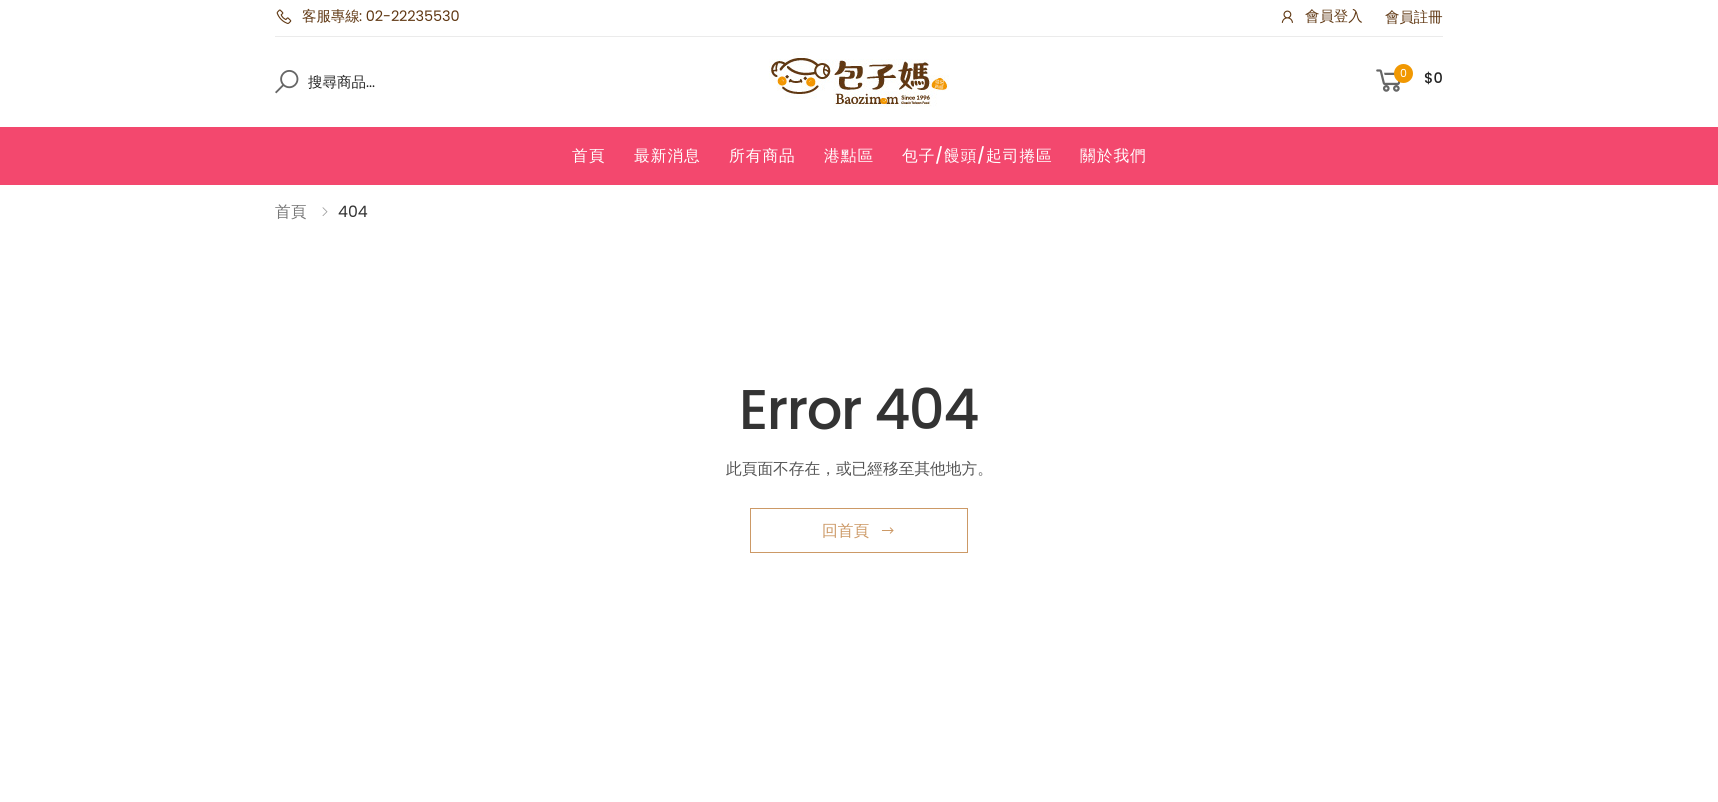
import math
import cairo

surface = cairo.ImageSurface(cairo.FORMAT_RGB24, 1718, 802)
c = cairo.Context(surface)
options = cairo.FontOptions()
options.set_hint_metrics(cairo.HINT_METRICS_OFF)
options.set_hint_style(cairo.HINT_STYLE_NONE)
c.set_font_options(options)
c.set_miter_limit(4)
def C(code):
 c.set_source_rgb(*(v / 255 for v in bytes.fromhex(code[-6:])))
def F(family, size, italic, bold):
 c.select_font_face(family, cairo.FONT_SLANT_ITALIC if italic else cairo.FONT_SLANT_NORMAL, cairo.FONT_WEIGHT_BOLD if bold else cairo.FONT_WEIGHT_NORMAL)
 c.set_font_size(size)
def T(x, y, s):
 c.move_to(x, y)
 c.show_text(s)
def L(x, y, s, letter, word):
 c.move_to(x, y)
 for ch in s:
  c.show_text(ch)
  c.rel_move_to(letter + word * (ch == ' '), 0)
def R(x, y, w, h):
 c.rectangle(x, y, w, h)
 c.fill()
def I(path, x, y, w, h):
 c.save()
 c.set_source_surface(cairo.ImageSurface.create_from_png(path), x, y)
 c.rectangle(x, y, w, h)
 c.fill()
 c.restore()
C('ffffff')
c.paint()
I('1.png',276,9,16,15)
F('WenQuanYi Zen Hei Medium',14.5,0,0)
C('603813')
L(302,21,'客服專線',-.1,0)
F('Poppins',14.5,0,0)
L(359,21,': 02-22235530',-.1,0)
I('2.png',1281,10,12,13)
F('WenQuanYi Zen Hei Medium',14.5,0,0)
L(1305,21,'會員登入',-.1,0)
L(1385,22,'會員註冊',-.1,0)
C('ebebeb')
R(275,36,1168,1)
I('3.png',275,70,24,24)
C('222222')
T(308,87,'搜尋商品')
F('Poppins',14.5,0,0)
T(366,87,'...')
I('4.png',769,51,180,56)
I('5.png',1376,69,25,23)
C('f19802')
c.arc(1403.5,73.5,9.5,0,2 * math.pi)
c.fill()
F('Poppins',11,0,0)
C('ffffff')
T(1400,77,'0')
F('Poppins Medium',14.5,0,0)
C('222222')
T(1424,83,'$0')
C('f3486e')
R(0,127,1718,58)
F('WenQuanYi Zen Hei Medium',15.7,0,0)
C('ffffff')
L(572,161,'首頁',1,0)
L(634,161,'最新消息',1,0)
L(729,161,'所有商品',1,0)
L(824,161,'港點區',1,0)
L(902,161,'包子',1,0)
F('Poppins Medium',15.7,0,0)
L(935,161,'/',1,0)
F('WenQuanYi Zen Hei Medium',15.7,0,0)
L(944,161,'饅頭',1,0)
F('Poppins Medium',15.7,0,0)
L(977,161,'/',1,0)
F('WenQuanYi Zen Hei Medium',15.7,0,0)
L(986,161,'起司捲區',1,0)
L(1080,161,'關於我們',1,0)
C('777777')
T(275,217,'首頁')
I('6.png',322,207,6,9)
F('Poppins',15.7,0,0)
C('333333')
T(338,217,'404')
F('Poppins Medium',56,0,0)
L(739,429,'Error 404',-1.5,0)
F('WenQuanYi Zen Hei Medium',15.7,0,0)
C('555555')
T(726,474,'此頁面不存在，或已經移至其他地方。')
c.rectangle(750.5,508.5,217,44)
C('cc9966')
c.set_line_width(1)
c.stroke()
T(822,536,'回首頁')
I('7.png',881,527,13,7)
surface.write_to_png('o.png')
